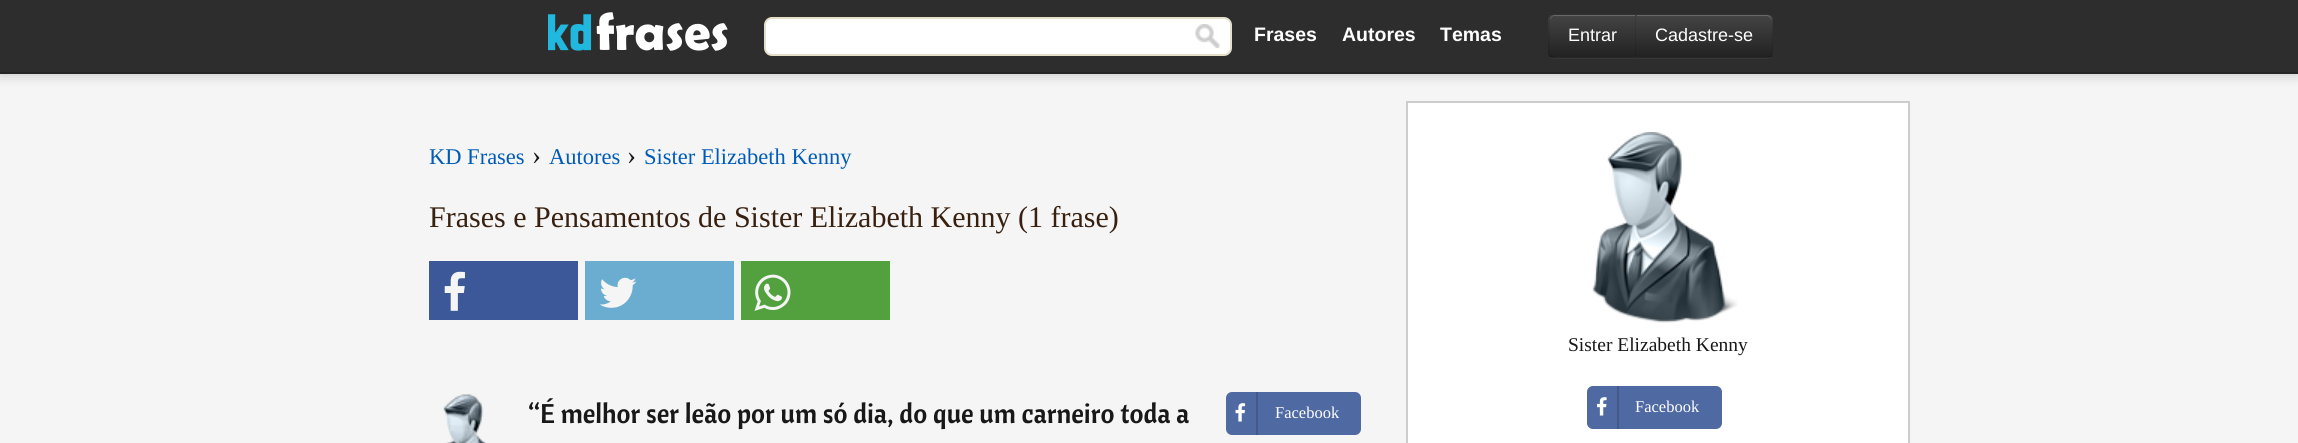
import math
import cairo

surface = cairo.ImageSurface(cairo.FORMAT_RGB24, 2298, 443)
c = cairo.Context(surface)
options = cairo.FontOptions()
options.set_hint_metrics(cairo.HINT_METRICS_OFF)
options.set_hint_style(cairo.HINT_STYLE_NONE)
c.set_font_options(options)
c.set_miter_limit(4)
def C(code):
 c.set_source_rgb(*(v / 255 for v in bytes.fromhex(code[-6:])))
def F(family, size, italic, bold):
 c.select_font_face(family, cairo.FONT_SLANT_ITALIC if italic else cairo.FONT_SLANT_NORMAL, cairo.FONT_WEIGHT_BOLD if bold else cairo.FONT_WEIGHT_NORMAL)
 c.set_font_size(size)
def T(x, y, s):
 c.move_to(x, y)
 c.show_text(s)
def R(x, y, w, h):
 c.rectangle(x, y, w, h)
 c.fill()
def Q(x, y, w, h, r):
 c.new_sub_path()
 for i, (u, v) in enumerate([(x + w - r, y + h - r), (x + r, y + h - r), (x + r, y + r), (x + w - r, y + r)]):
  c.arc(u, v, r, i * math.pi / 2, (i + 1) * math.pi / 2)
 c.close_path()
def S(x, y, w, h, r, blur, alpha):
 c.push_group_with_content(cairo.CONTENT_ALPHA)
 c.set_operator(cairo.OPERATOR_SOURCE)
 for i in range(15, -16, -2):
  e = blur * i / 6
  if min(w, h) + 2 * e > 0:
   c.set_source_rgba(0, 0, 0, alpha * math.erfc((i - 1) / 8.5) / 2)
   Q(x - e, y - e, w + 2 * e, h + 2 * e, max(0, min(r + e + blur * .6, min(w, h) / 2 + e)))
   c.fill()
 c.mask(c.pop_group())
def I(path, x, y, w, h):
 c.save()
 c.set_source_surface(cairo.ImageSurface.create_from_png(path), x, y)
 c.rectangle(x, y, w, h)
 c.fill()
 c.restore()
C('f5f5f5')
c.paint()
C('000000')
S(0,-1,2298,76,0,6,.2)
C('2d2d2d')
R(0,0,2298,72)
C('252525')
R(0,72,2298,2)
I('1.png',548,12,180,39)
C('ffffff')
Q(765,18,466,37,7)
c.fill_preserve()
C('e3dfc9')
c.stroke()
I('2.png',1195,24,25,24)
F('Liberation Sans',19.5,0,1)
C('ffffff')
T(1254,41,'Frases')
T(1342,41,'Autores')
T(1440,41,'Temas')
C('363636')
c.new_path()
c.move_to(1554,14)
c.line_to(1637,14)
c.line_to(1637,59)
c.line_to(1554,59)
c.curve_to(1550.5,59,1548,56.5,1548,53)
c.line_to(1548,20)
c.curve_to(1548,16.5,1550.5,14,1554,14)
c.close_path()
c.fill()
c.save()
c.new_path()
c.move_to(1554,14)
c.line_to(1637,14)
c.line_to(1637,59)
c.line_to(1554,59)
c.curve_to(1550.5,59,1548,56.5,1548,53)
c.line_to(1548,20)
c.curve_to(1548,16.5,1550.5,14,1554,14)
c.close_path()
c.clip()
gradient = cairo.LinearGradient(1592,15,1592,57)
gradient.add_color_stop_rgba(0,0.267,0.267,0.267,1)
gradient.add_color_stop_rgba(1,0.133,0.133,0.133,1)
c.set_source(gradient)
R(1548,15,87,42)
c.restore()
c.set_source_rgba(1,1,1,0.2)
c.new_path()
c.move_to(1554,16)
c.line_to(1635,16)
c.line_to(1635,15)
c.line_to(1555,15)
c.curve_to(1552,15,1550,17,1550,20)
c.line_to(1550,21)
c.curve_to(1550,19,1552,16,1554,16)
c.close_path()
c.fill()
c.set_source_rgba(0,0,0,0.1)
c.new_path()
c.move_to(1554,14)
c.curve_to(1553,14,1551,14,1550,15)
c.line_to(1551,17)
c.line_to(1554,15)
c.line_to(1635,15)
c.line_to(1636,14)
c.close_path()
c.fill()
c.set_source_rgba(0,0,0,0.25)
c.new_path()
c.move_to(1636,58)
c.line_to(1635,57)
c.line_to(1554,57)
c.line_to(1551,55)
c.line_to(1550,57)
c.curve_to(1551,58,1553,58,1554,58)
c.close_path()
c.fill()
c.set_source_rgba(0,0,0,0.1)
c.new_path()
c.move_to(1548,20)
c.line_to(1548,52)
c.curve_to(1548,54,1549,56,1550,57)
c.line_to(1551,55)
c.curve_to(1550,55,1550,53,1550,52)
c.line_to(1550,20)
c.curve_to(1550,19,1550,17,1551,17)
c.line_to(1550,15)
c.curve_to(1549,16,1548,18,1548,20)
c.close_path()
c.fill()
F('Liberation Sans',18,0,0)
C('ffffff')
T(1568,41,'Entrar')
C('363636')
c.new_path()
c.move_to(1635,14)
c.line_to(1767,14)
c.curve_to(1770.5,14,1773,16.5,1773,20)
c.line_to(1773,53)
c.curve_to(1773,56.5,1770.5,59,1767,59)
c.line_to(1635,59)
c.close_path()
c.fill()
c.save()
c.new_path()
c.move_to(1635,14)
c.line_to(1767,14)
c.curve_to(1770.5,14,1773,16.5,1773,20)
c.line_to(1773,53)
c.curve_to(1773,56.5,1770.5,59,1767,59)
c.line_to(1635,59)
c.close_path()
c.clip()
gradient = cairo.LinearGradient(1704,15,1704,57)
gradient.add_color_stop_rgba(0,0.267,0.267,0.267,1)
gradient.add_color_stop_rgba(1,0.133,0.133,0.133,1)
c.set_source(gradient)
R(1635,15,138,42)
c.restore()
C('696969')
c.new_path()
c.move_to(1637,15)
c.line_to(1637,16)
c.line_to(1767,16)
c.curve_to(1769,16,1772,19,1772,21)
c.curve_to(1772,18,1770,15,1767,15)
c.close_path()
c.fill()
c.set_source_rgba(0,0,0,0.1)
c.new_path()
c.move_to(1771,15)
c.line_to(1768,14)
c.line_to(1636,14)
c.line_to(1636,15)
c.line_to(1767,15)
c.line_to(1770,16)
c.close_path()
c.fill()
c.new_path()
c.move_to(1771,15)
c.curve_to(1772,16,1773,18,1773,20)
c.line_to(1773,52)
c.curve_to(1773,54,1772,56,1771,57)
c.line_to(1770,56)
c.curve_to(1771,55,1772,54,1772,52)
c.line_to(1772,20)
c.curve_to(1772,18,1771,17,1770,16)
c.close_path()
c.fill()
c.set_source_rgba(0,0,0,0.25)
c.new_path()
c.move_to(1771,57)
c.line_to(1768,58)
c.line_to(1636,58)
c.line_to(1636,57)
c.line_to(1767,57)
c.line_to(1770,56)
c.close_path()
c.fill()
c.set_source_rgba(0,0,0,0.1)
c.new_path()
c.move_to(1636,15)
c.line_to(1636,57)
c.line_to(1635,58)
c.line_to(1635,14)
c.close_path()
c.fill()
C('ffffff')
T(1655,41,'Cadastre-se')
F('Liberation Serif',22.5,0,0)
C('005bb8')
T(429,164,'KD Frases')
F('Liberation Serif',27,0,0)
C('181818')
T(532,164,'›')
F('Liberation Serif',22.5,0,0)
C('005bb8')
T(549,164,'Autores')
F('Liberation Serif',27,0,0)
C('181818')
T(627,164,'›')
F('Liberation Serif',22.5,0,0)
C('005bb8')
T(644,164,'Sister Elizabeth Kenny')
F('Liberation Serif',30,0,0)
C('382110')
T(429,227,'Frases e Pensamentos de Sister Elizabeth Kenny (1 frase)')
C('3c5898')
R(429,261,149,59)
I('3.png',444,271,21,40)
C('6aadd1')
R(585,261,149,59)
I('4.png',599,277,38,31)
C('52a03e')
R(741,261,149,59)
I('5.png',754,274,37,37)
I('6.png',443,394,44,49)
F('Cantora One',27,0,0)
C('181818')
T(528,423,'“É melhor ser leão por um só dia, do que um carneiro toda a')
C('4f69a2')
Q(1226,392,135,43,6)
c.fill()
C('43598a')
R(1256,392,2,43)
I('7.png',1235,403,11,19)
F('Liberation Serif',16.5,0,0)
C('ffffff')
T(1275,418,'Facebook')
c.rectangle(1407,102,502,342)
c.fill_preserve()
C('cccccc')
c.stroke()
I('8.png',1592,132,146,191)
F('Liberation Serif',19.5,0,0)
C('181818')
T(1568,351,'Sister Elizabeth Kenny')
C('4f69a2')
Q(1587,386,135,43,6)
c.fill()
C('43598a')
R(1617,386,2,43)
I('9.png',1597,397,10,19)
F('Liberation Serif',16.5,0,0)
C('ffffff')
T(1635,412,'Facebook')
surface.write_to_png('o.png')
